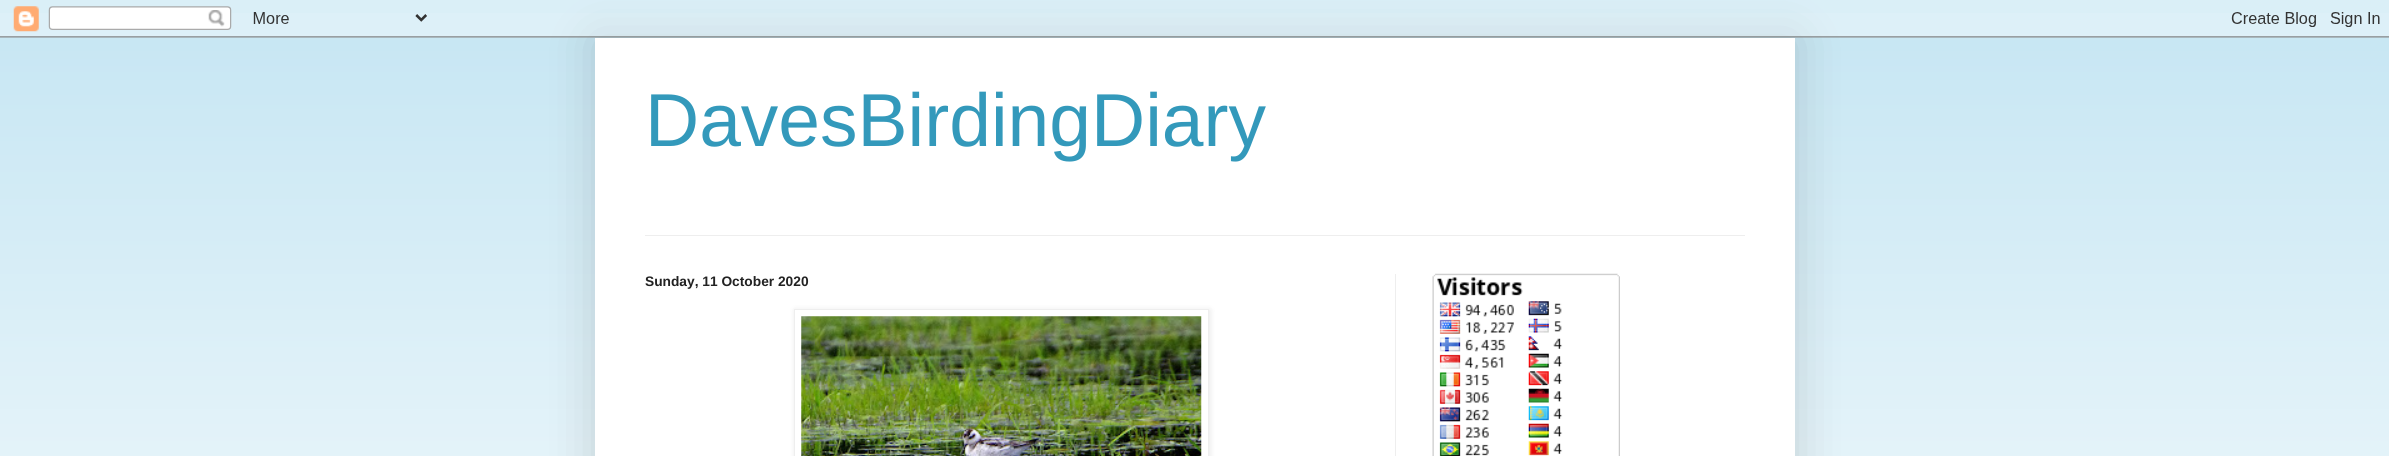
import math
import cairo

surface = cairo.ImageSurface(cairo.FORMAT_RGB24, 2389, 456)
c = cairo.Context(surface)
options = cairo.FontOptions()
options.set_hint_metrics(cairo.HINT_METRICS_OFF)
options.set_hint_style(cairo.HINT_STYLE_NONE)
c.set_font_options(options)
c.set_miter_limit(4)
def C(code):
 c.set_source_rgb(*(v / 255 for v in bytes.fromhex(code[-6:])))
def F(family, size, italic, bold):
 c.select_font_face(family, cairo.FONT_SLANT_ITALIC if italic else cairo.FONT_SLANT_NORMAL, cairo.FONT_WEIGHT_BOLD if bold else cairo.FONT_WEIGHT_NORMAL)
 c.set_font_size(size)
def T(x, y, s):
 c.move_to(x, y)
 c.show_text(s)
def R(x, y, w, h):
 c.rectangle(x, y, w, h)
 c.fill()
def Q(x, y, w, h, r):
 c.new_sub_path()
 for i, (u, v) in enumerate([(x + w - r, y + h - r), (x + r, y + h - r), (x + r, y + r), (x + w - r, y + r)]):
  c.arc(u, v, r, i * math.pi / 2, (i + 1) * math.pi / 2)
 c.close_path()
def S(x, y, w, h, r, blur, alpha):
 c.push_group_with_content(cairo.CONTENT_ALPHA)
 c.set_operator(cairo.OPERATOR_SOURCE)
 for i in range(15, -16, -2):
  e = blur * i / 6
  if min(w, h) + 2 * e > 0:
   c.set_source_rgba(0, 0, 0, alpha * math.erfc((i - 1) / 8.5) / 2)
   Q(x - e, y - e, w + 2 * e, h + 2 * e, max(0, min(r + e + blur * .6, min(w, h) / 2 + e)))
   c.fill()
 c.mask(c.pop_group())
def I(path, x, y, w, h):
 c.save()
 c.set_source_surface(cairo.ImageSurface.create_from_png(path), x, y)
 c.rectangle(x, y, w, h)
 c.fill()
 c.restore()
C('c2e4f2')
c.paint()
I('2.png',0,13,2389,443)
C('000000')
S(595,38,1200,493,0,25,.15)
I('1.png',0,0,2389,38)
C('ffffff')
R(595,38,1200,418)
F('Liberation Sans',75,0,0)
C('3399bb')
T(645,146,'DavesBirdingDiary')
C('eeeeee')
R(645,235,1100,1)
F('Liberation Sans',13.75,0,1)
C('222222')
T(645,286,'Sunday, 11 October 2020')
C('000000')
S(795,310,415,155,0,3,.1)
C('ffffff')
c.rectangle(794.5,309.5,414,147)
c.fill_preserve()
C('eeeeee')
c.set_line_width(1)
c.stroke()
I('3.png',801,316,401,140)
I('4.png',1432,273,188,183)
R(1395,274,1,182)
surface.write_to_png('o.png')
